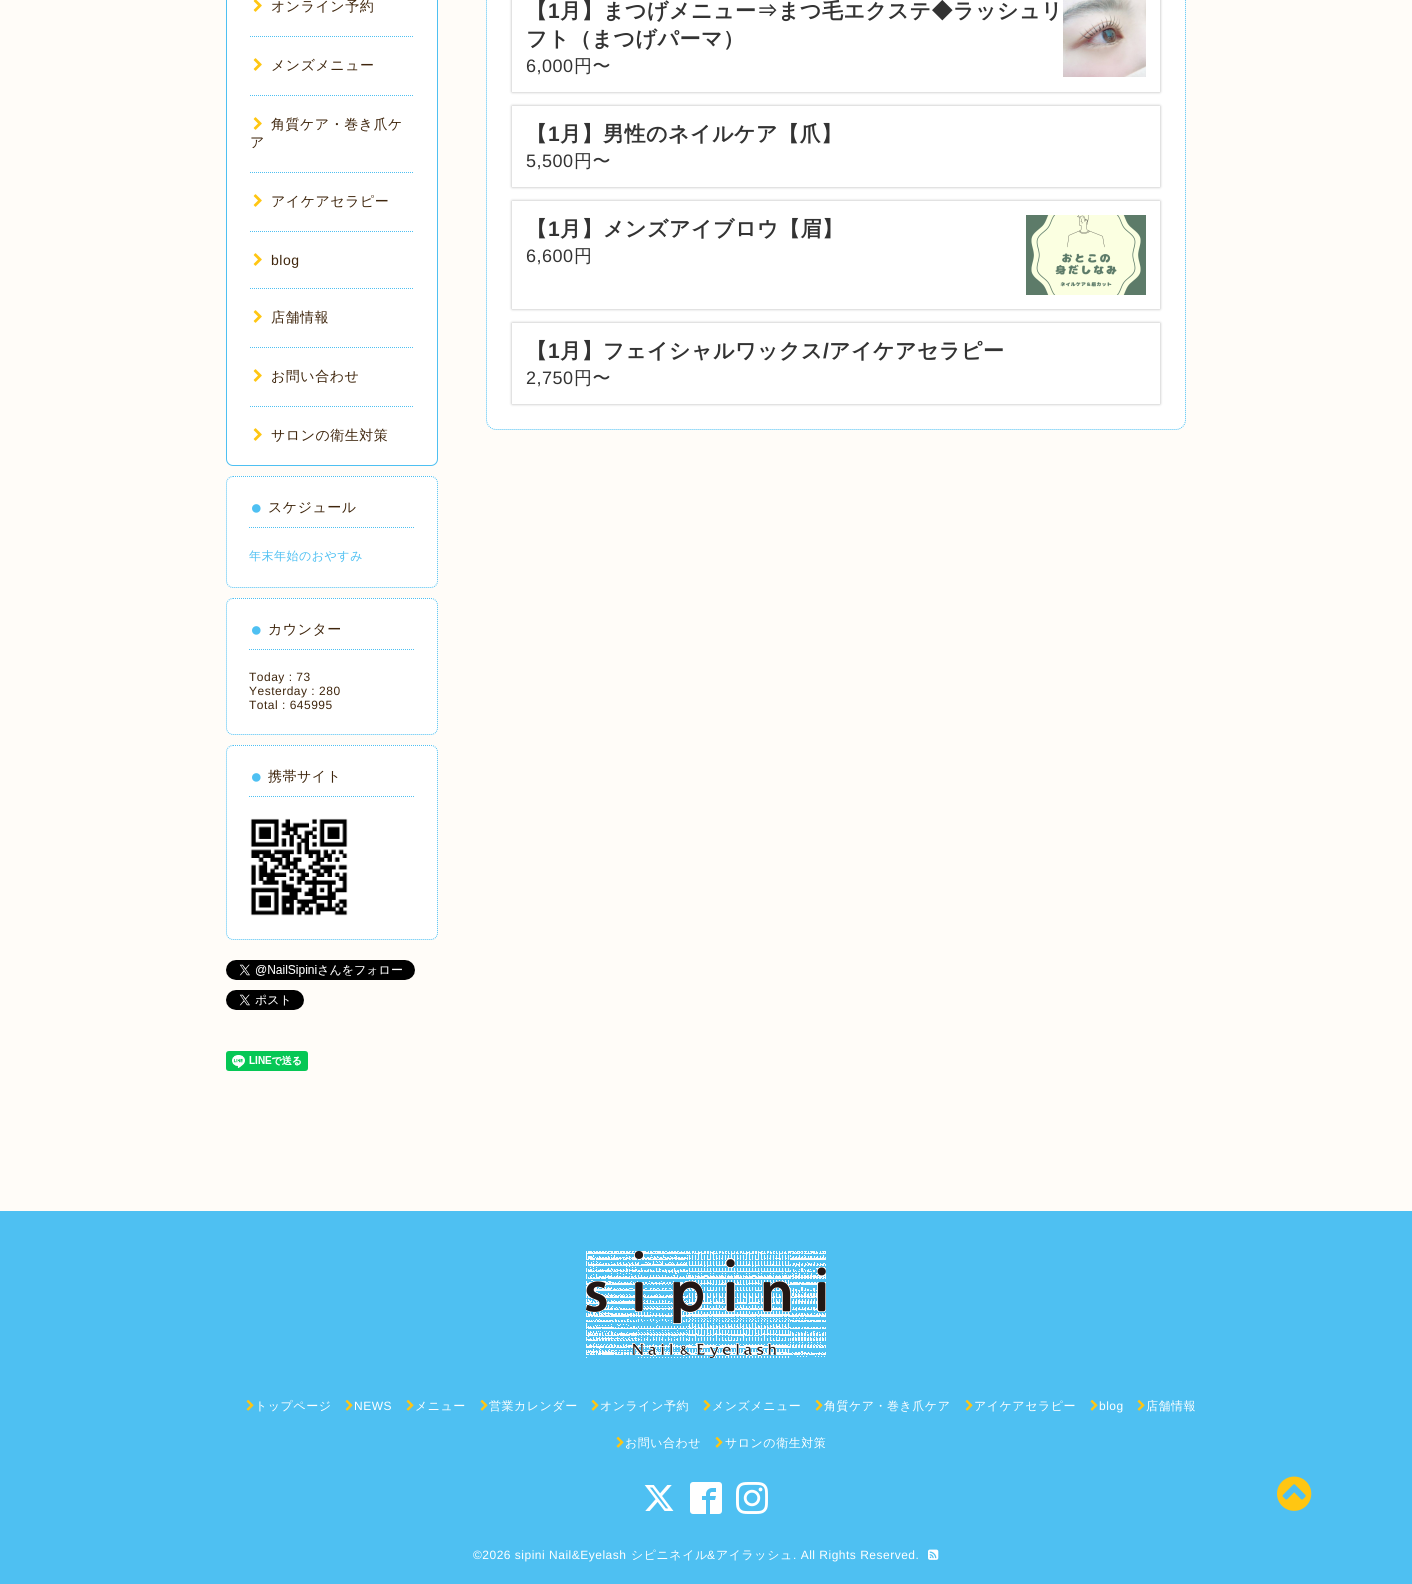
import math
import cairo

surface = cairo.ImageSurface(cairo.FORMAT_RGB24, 1412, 1584)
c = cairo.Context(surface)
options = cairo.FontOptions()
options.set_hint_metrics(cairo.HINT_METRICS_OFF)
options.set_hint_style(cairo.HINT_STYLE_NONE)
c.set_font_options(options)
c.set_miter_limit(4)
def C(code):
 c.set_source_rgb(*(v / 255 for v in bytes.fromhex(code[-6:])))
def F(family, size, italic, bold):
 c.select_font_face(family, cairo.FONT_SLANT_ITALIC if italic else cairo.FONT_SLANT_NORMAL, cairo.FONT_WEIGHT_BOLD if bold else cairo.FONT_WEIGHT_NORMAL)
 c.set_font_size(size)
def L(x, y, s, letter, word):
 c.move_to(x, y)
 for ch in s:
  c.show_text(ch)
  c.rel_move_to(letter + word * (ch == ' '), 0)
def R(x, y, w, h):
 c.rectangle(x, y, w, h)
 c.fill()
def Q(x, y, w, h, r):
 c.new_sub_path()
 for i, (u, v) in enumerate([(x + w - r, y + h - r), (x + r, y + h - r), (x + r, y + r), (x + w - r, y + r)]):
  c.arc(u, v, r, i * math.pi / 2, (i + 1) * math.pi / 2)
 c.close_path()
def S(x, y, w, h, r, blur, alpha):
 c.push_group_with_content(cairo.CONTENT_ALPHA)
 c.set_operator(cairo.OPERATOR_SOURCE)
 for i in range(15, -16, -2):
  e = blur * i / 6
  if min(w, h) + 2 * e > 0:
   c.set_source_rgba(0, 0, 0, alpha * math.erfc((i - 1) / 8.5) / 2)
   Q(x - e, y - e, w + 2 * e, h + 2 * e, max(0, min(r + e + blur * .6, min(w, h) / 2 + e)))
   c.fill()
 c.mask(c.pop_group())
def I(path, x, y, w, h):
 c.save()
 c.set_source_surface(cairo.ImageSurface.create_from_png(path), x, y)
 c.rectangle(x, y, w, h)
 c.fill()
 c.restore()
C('fffcf8')
c.paint()
C('ffffff')
Q(226.5,-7.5,211,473,6.5)
c.fill_preserve()
C('4ec0f2')
c.set_line_width(1)
c.stroke()
c.new_path()
c.move_to(250,36.5)
c.line_to(414,36.5)
c.set_dash([1,1])
c.stroke()
I('1.png',253,0,9,12)
F('WenQuanYi Zen Hei Medium',14,0,0)
C('3f260d')
L(271,11,'オンライン予約',.5,0)
c.new_path()
c.move_to(250,95.5)
c.line_to(414,95.5)
C('4ec0f2')
c.stroke()
I('2.png',253,58,9,13)
C('3f260d')
L(271,70,'メンズメニュー',.5,0)
c.new_path()
c.move_to(250,172.5)
c.line_to(414,172.5)
C('4ec0f2')
c.stroke()
I('2.png',253,117,9,13)
C('3f260d')
L(271,129,'角質ケア・巻き爪ケ',.5,0)
L(250,147,'ア',.5,0)
c.new_path()
c.move_to(250,231.5)
c.line_to(414,231.5)
C('4ec0f2')
c.stroke()
I('2.png',253,194,9,13)
C('3f260d')
L(271,206,'アイケアセラピー',.5,0)
c.new_path()
c.move_to(250,288.5)
c.line_to(414,288.5)
C('4ec0f2')
c.stroke()
I('2.png',253,253,9,13)
F('Liberation Sans',14,0,0)
C('3f260d')
L(271,265,'blog',.5,0)
c.new_path()
c.move_to(250,347.5)
c.line_to(414,347.5)
C('4ec0f2')
c.stroke()
I('2.png',253,310,9,13)
F('WenQuanYi Zen Hei Medium',14,0,0)
C('3f260d')
L(271,322,'店舗情報',.5,0)
c.new_path()
c.move_to(250,406.5)
c.line_to(414,406.5)
C('4ec0f2')
c.stroke()
I('2.png',253,369,9,13)
C('3f260d')
L(271,381,'お問い合わせ',.5,0)
I('2.png',253,428,9,13)
L(271,440,'サロンの衛生対策',.5,0)
C('ffffff')
Q(226,476,212,112,7)
c.fill()
c.new_path()
c.move_to(233,476.5)
c.line_to(431,476.5)
c.curve_to(434.5,476.5,437.5,479.5,437.5,483)
c.line_to(437.5,581)
c.curve_to(437.5,584.5,434.5,587.5,431,587.5)
c.line_to(233,587.5)
c.curve_to(229.5,587.5,226.5,584.5,226.5,581)
c.line_to(226.5,483)
c.curve_to(226.5,479.5,229.5,476.5,233,476.5)
c.close_path()
C('4ec0f2')
c.stroke()
c.new_path()
c.move_to(249,527.5)
c.line_to(415,527.5)
c.stroke()
I('3.png',252,504,9,9)
C('3f260d')
L(268,512,'スケジュール',.5,0)
F('WenQuanYi Zen Hei Medium',12,0,0)
C('4ec0f2')
L(249,560,'年末年始のおやすみ',.5,0)
C('ffffff')
Q(226,598,212,137,7)
c.fill()
c.new_path()
c.move_to(233,598.5)
c.line_to(431,598.5)
c.curve_to(434.5,598.5,437.5,601.5,437.5,605)
c.line_to(437.5,728)
c.curve_to(437.5,731.5,434.5,734.5,431,734.5)
c.line_to(233,734.5)
c.curve_to(229.5,734.5,226.5,731.5,226.5,728)
c.line_to(226.5,605)
c.curve_to(226.5,601.5,229.5,598.5,233,598.5)
c.close_path()
C('4ec0f2')
c.stroke()
c.new_path()
c.move_to(249,649.5)
c.line_to(415,649.5)
c.stroke()
I('3.png',252,626,9,9)
F('WenQuanYi Zen Hei Medium',14,0,0)
C('3f260d')
L(268,634,'カウンター',.5,0)
F('Liberation Sans',12,0,0)
L(249,681,'Today : 73',.5,0)
L(249,695,'Yesterday : 280',.5,0)
L(249,709,'Total : 645995',.5,0)
C('ffffff')
Q(226,745,212,195,7)
c.fill()
c.new_path()
c.move_to(233,745.5)
c.line_to(431,745.5)
c.curve_to(434.5,745.5,437.5,748.5,437.5,752)
c.line_to(437.5,933)
c.curve_to(437.5,936.5,434.5,939.5,431,939.5)
c.line_to(233,939.5)
c.curve_to(229.5,939.5,226.5,936.5,226.5,933)
c.line_to(226.5,752)
c.curve_to(226.5,748.5,229.5,745.5,233,745.5)
c.close_path()
C('4ec0f2')
c.stroke()
c.new_path()
c.move_to(249,796.5)
c.line_to(415,796.5)
c.stroke()
I('3.png',252,773,9,9)
F('WenQuanYi Zen Hei Medium',14,0,0)
C('3f260d')
L(268,781,'携帯サイト',.5,0)
I('4.png',250,818,98,98)
I('5.png',226,960,189,20)
I('6.png',226,990,78,20)
I('7.png',226,1051,82,20)
C('ffffff')
Q(486,-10,700,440,10)
c.fill()
c.new_path()
c.move_to(496,-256.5)
c.line_to(1176,-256.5)
c.curve_to(1181,-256.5,1185.5,-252,1185.5,-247)
c.line_to(1185.5,420)
c.curve_to(1185.5,425,1181,429.5,1176,429.5)
c.line_to(496,429.5)
c.curve_to(491,429.5,486.5,425,486.5,420)
c.line_to(486.5,-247)
c.curve_to(486.5,-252,491,-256.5,496,-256.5)
c.close_path()
C('4ec0f2')
c.stroke()
c.save()
c.set_fill_rule(cairo.FILL_RULE_EVEN_ODD)
c.new_path()
c.move_to(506,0)
c.line_to(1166,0)
c.line_to(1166,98)
c.line_to(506,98)
c.close_path()
c.move_to(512,-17)
c.line_to(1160,-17)
c.line_to(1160,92)
c.line_to(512,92)
c.close_path()
c.clip()
C('000000')
S(512,-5,648,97,0,1.5,.3)
c.restore()
F('WenQuanYi Zen Hei',21,0,1)
C('333333')
L(526,18,'【',.5,0)
F('Liberation Sans',21,0,1)
L(548,18,'1',.5,0)
F('WenQuanYi Zen Hei',21,0,1)
L(560,18,'月】まつげメニュー⇒まつ毛エクステ◆ラッシュリ',.5,0)
L(526,46,'フト（まつげパーマ）',.5,0)
F('Liberation Sans',18,0,0)
L(526,72,'6,000',.5,0)
F('WenQuanYi Zen Hei Medium',18,0,0)
L(574,72,'円〜',.5,0)
I('8.png',1063,0,83,77)
c.save()
c.set_fill_rule(cairo.FILL_RULE_EVEN_ODD)
c.new_path()
c.move_to(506,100)
c.line_to(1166,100)
c.line_to(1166,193)
c.line_to(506,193)
c.close_path()
c.move_to(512,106)
c.line_to(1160,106)
c.line_to(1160,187)
c.line_to(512,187)
c.close_path()
c.clip()
C('000000')
S(512,106,648,81,0,1.5,.3)
c.restore()
F('WenQuanYi Zen Hei',21,0,1)
L(526,141,'【',.5,0)
F('Liberation Sans',21,0,1)
L(548,141,'1',.5,0)
F('WenQuanYi Zen Hei',21,0,1)
L(560,141,'月】男性のネイルケア【爪】',.5,0)
F('Liberation Sans',18,0,0)
L(526,167,'5,500',.5,0)
F('WenQuanYi Zen Hei Medium',18,0,0)
L(574,167,'円〜',.5,0)
c.save()
c.set_fill_rule(cairo.FILL_RULE_EVEN_ODD)
c.new_path()
c.move_to(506,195)
c.line_to(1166,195)
c.line_to(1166,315)
c.line_to(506,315)
c.close_path()
c.move_to(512,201)
c.line_to(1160,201)
c.line_to(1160,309)
c.line_to(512,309)
c.close_path()
c.clip()
C('000000')
S(512,201,648,108,0,1.5,.3)
c.restore()
F('WenQuanYi Zen Hei',21,0,1)
L(526,236,'【',.5,0)
F('Liberation Sans',21,0,1)
L(548,236,'1',.5,0)
F('WenQuanYi Zen Hei',21,0,1)
L(560,236,'月】メンズアイブロウ【眉】',.5,0)
F('Liberation Sans',18,0,0)
L(526,262,'6,600',.5,0)
F('WenQuanYi Zen Hei Medium',18,0,0)
L(574,262,'円',.5,0)
I('9.png',1026,215,120,80)
c.save()
c.set_fill_rule(cairo.FILL_RULE_EVEN_ODD)
c.new_path()
c.move_to(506,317)
c.line_to(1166,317)
c.line_to(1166,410)
c.line_to(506,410)
c.close_path()
c.move_to(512,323)
c.line_to(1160,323)
c.line_to(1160,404)
c.line_to(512,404)
c.close_path()
c.clip()
C('000000')
S(512,323,648,81,0,1.5,.3)
c.restore()
F('WenQuanYi Zen Hei',21,0,1)
L(526,358,'【',.5,0)
F('Liberation Sans',21,0,1)
L(548,358,'1',.5,0)
F('WenQuanYi Zen Hei',21,0,1)
L(560,358,'月】フェイシャルワックス',.5,0)
F('Liberation Sans',21,0,1)
L(823,358,'/',.5,0)
F('WenQuanYi Zen Hei',21,0,1)
L(829,358,'アイケアセラピー',.5,0)
F('Liberation Sans',18,0,0)
L(526,384,'2,750',.5,0)
F('WenQuanYi Zen Hei Medium',18,0,0)
L(574,384,'円〜',.5,0)
C('4ec0f2')
R(0,1211,1412,373)
I('10.png',1277,1476,35,35)
I('11.png',586,1251,240,107)
I('12.png',246,1399,8,12)
F('WenQuanYi Zen Hei Medium',12,0,0)
C('ffffff')
L(255,1410,'トップページ',.5,0)
I('12.png',345,1399,8,12)
F('Liberation Sans',12,0,0)
L(354,1410,'NEWS',.5,0)
I('12.png',406,1399,8,12)
F('WenQuanYi Zen Hei Medium',12,0,0)
L(415,1410,'メニュー',.5,0)
I('12.png',480,1399,8,12)
L(489,1410,'営業カレンダー',.5,0)
I('12.png',591,1399,8,12)
L(600,1410,'オンライン予約',.5,0)
I('12.png',703,1399,8,12)
L(712,1410,'メンズメニュー',.5,0)
I('12.png',815,1399,8,12)
L(824,1410,'角質ケア・巻き爪ケア',.5,0)
I('12.png',965,1399,8,12)
L(974,1410,'アイケアセラピー',.5,0)
I('12.png',1090,1399,8,12)
F('Liberation Sans',12,0,0)
L(1099,1410,'blog',.5,0)
I('12.png',1137,1399,8,12)
F('WenQuanYi Zen Hei Medium',12,0,0)
L(1146,1410,'店舗情報',.5,0)
I('12.png',616,1436,8,12)
L(625,1447,'お問い合わせ',.5,0)
I('12.png',715,1436,8,12)
L(725,1447,'サロンの衛生対策',.5,0)
I('13.png',644,1485,30,26)
I('14.png',690,1482,32,32)
I('15.png',736,1482,32,32)
F('Liberation Sans',12,0,0)
L(473,1559,'©2026 sipini Nail&Eyelash',.5,0)
F('WenQuanYi Zen Hei Medium',12,0,0)
L(631,1559,'シピニネイル',.5,0)
F('Liberation Sans',12,0,0)
L(707,1559,'&',.5,0)
F('WenQuanYi Zen Hei Medium',12,0,0)
L(716,1559,'アイラッシュ',.5,0)
F('Liberation Sans',12,0,0)
L(793,1559,'. All Rights Reserved.',.5,0)
I('16.png',928,1549,11,11)
surface.write_to_png('o.png')
